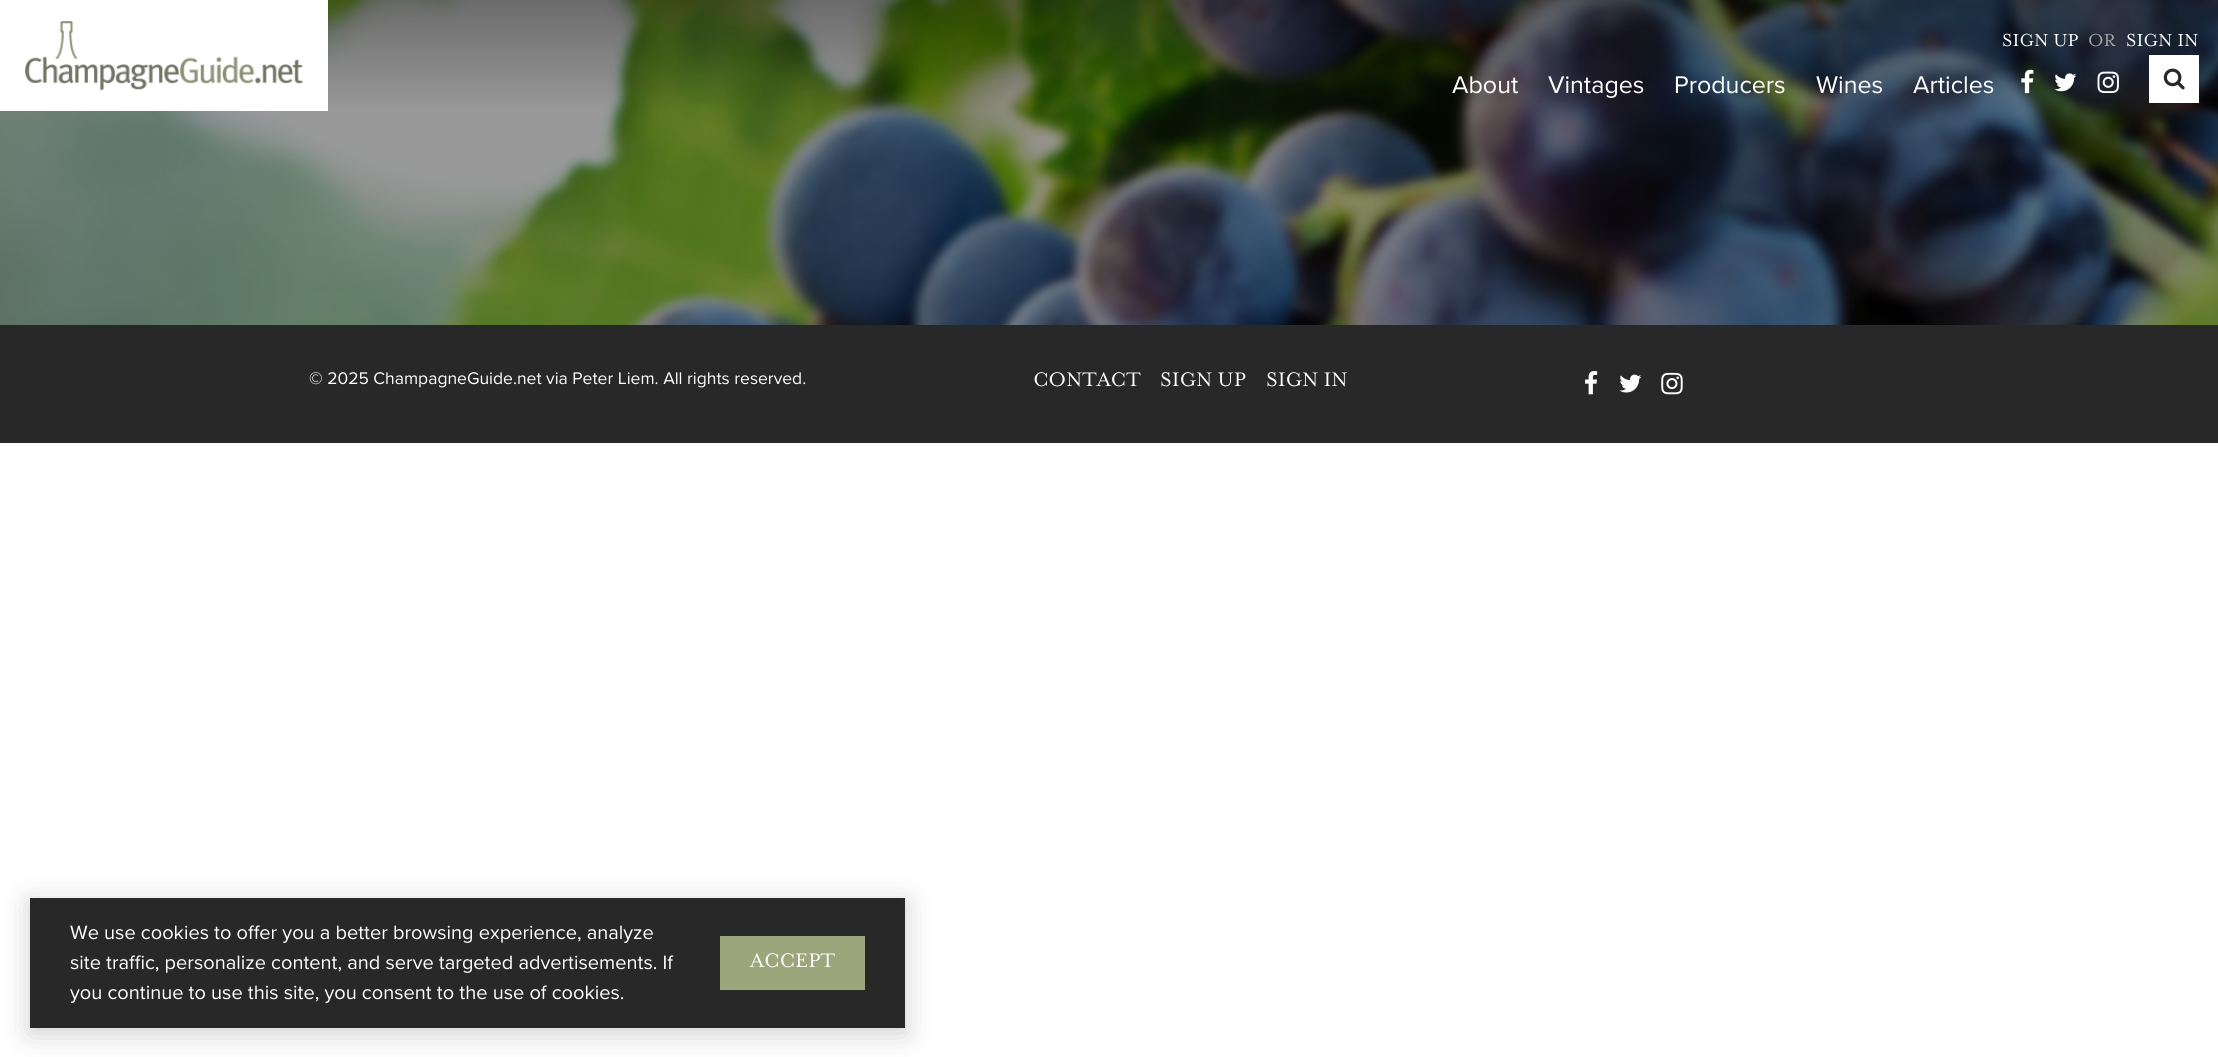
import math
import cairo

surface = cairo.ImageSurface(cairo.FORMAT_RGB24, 2218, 1057)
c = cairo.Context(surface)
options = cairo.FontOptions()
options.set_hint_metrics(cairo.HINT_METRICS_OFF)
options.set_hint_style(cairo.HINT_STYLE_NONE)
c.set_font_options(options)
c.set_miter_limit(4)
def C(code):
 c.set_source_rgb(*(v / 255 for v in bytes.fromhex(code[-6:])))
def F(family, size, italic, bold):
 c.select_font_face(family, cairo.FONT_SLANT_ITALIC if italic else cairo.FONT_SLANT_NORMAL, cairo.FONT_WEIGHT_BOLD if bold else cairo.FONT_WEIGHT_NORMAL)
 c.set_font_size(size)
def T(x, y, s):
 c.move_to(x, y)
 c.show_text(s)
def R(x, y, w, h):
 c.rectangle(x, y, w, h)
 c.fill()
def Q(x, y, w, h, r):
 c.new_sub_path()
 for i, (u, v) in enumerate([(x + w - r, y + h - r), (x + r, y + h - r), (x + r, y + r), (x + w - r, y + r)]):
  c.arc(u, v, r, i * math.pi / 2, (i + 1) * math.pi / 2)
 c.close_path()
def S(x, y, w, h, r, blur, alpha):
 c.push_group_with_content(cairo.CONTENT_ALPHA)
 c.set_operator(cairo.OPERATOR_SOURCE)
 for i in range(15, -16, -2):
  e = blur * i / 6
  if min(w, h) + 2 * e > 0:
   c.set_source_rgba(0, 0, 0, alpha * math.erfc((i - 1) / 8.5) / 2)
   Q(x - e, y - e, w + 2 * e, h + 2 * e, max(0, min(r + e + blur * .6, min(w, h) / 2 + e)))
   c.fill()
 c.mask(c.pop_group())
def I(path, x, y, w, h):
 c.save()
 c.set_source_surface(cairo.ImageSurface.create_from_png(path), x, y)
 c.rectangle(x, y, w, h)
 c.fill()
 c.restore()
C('ffffff')
c.paint()
I('1.png',0,0,2218,325)
C('ffffff')
R(0,0,328,111)
I('2.png',25,21,278,70)
F('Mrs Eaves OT',20,0,0)
T(2002,46,'SIGN UP')
C('a2a2a2')
T(2088,46,'OR')
C('ffffff')
T(2126,46,'SIGN IN')
F('Proxima Nova',25,0,0)
T(1452,93,'About')
T(1548,93,'Vintages')
T(1674,93,'Producers')
T(1816,93,'Wines')
T(1913,93,'Articles')
I('3.png',2021,69,13,25)
I('4.png',2054,73,23,19)
I('5.png',2097,71,22,22)
R(2149,55,50,48)
I('6.png',2163,68,22,22)
C('282828')
R(0,325,2218,118)
F('Proxima Nova',17.5,0,0)
C('ffffff')
T(309,384,'© 2025 ChampagneGuide.net via Peter Liem. All rights reserved.')
F('Mrs Eaves OT',22.5,0,0)
T(1033,386,'CONTACT')
T(1160,386,'SIGN UP')
T(1266,386,'SIGN IN')
I('7.png',1585,371,13,24)
I('8.png',1619,374,23,19)
I('9.png',1661,372,22,23)
C('000000')
S(30,903,875,130,0,14,.2)
C('282828')
R(30,898,875,130)
F('Proxima Nova',20,0,0)
C('ffffff')
T(70,939,'We use cookies to offer you a better browsing experience, analyze')
T(70,969,'site traffic, personalize content, and serve targeted advertisements. If')
T(70,999,'you continue to use this site, you consent to the use of cookies.')
C('9da57b')
R(720,936,145,54)
F('Mrs Eaves OT',22.5,0,0)
C('ffffff')
T(750,967,'ACCEPT')
surface.write_to_png('o.png')
